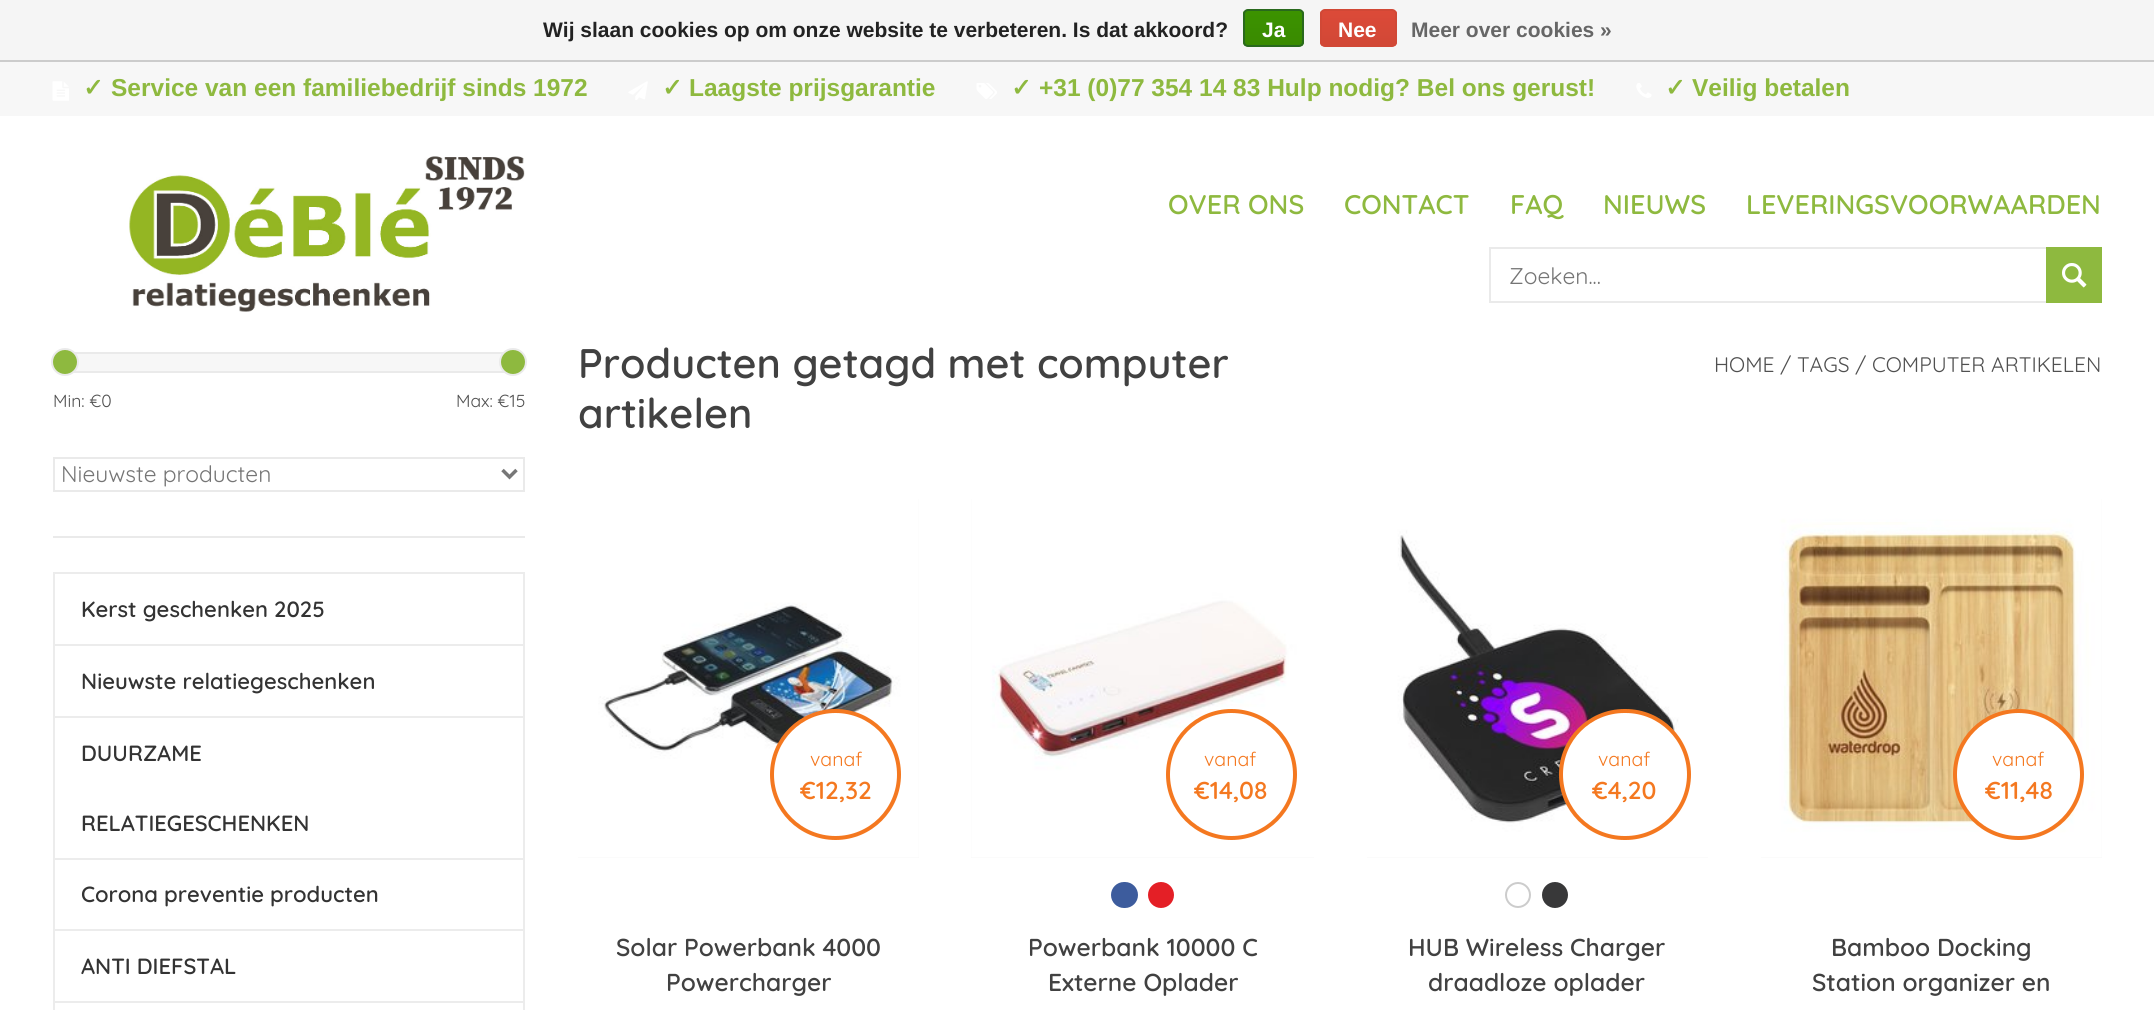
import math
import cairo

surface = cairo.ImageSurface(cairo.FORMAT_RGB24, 2154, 1010)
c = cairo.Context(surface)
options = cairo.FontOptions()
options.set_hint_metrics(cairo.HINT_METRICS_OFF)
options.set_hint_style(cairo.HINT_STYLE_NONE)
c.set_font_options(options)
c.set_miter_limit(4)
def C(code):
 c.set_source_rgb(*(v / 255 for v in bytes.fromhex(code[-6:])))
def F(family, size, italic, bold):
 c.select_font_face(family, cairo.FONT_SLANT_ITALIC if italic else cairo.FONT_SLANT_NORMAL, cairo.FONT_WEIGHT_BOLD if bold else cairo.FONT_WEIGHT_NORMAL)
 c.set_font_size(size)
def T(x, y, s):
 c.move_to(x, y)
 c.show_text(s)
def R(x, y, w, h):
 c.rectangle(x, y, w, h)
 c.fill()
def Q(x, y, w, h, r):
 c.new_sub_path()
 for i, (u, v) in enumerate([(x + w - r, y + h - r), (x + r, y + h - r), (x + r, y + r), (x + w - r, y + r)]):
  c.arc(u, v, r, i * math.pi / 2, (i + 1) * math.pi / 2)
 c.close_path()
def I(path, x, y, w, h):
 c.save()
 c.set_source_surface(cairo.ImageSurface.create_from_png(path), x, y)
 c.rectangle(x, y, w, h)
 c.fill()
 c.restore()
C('ffffff')
c.paint()
C('f5f5f5')
R(0,0,2154,60)
C('cccccc')
R(0,60,2154,2)
F('Liberation Sans',21,0,1)
C('222222')
T(543,37,'Wij slaan cookies op om onze website te verbeteren. Is dat akkoord?')
c.save()
Q(1243,9,61,38,5)
c.clip()
gradient = cairo.LinearGradient(1273,10,1273,46)
gradient.add_color_stop_rgba(0,0.235,0.576,0,1)
gradient.add_color_stop_rgba(1,0.224,0.541,0,1)
c.set_source(gradient)
R(1243,11,61,35)
c.restore()
Q(1244,10,59,36,4)
C('29691d')
c.stroke()
C('ffffff')
T(1262,37,'Ja')
c.save()
Q(1320,9,77,38,5)
c.clip()
gradient = cairo.LinearGradient(1358,10,1358,46)
gradient.add_color_stop_rgba(0,0.863,0.29,0.22,1)
gradient.add_color_stop_rgba(1,0.82,0.282,0.212,1)
c.set_source(gradient)
R(1320,11,77,35)
c.restore()
Q(1321,10,75,36,4)
C('d14836')
c.stroke()
C('ffffff')
T(1338,37,'Nee')
C('666666')
T(1411,37,'Meer over cookies »')
C('f7f7f7')
R(0,62,2154,54)
I('1.png',52,81,17,20)
F('DejaVu Sans',24.5,0,1)
C('8eb93f')
T(83,96,'✓')
F('Liberation Sans',24.5,0,1)
T(111,96,'Service van een familiebedrijf sinds 1972')
I('2.png',628,81,20,19)
F('DejaVu Sans',24.5,0,1)
T(662,96,'✓')
F('Liberation Sans',24.5,0,1)
T(689,96,'Laagste prijsgarantie')
I('3.png',976,83,21,16)
F('DejaVu Sans',24.5,0,1)
T(1011,96,'✓')
F('Liberation Sans',24.5,0,1)
T(1039,96,'+31 (0)77 354 14 83 Hulp nodig? Bel ons gerust!')
I('4.png',1636,83,16,15)
F('DejaVu Sans',24.5,0,1)
T(1665,96,'✓')
F('Liberation Sans',24.5,0,1)
T(1692,96,'Veilig betalen')
I('5.png',129,156,396,156)
F('Quicksand SemiBold',27,0,0)
T(1168,214,'OVER ONS')
T(1344,214,'CONTACT')
T(1510,214,'FAQ')
T(1603,214,'NIEUWS')
T(1746,214,'LEVERINGSVOORWAARDEN')
c.rectangle(1490,248,611,54)
C('eaeaea')
c.stroke()
F('Quicksand',22.75,0,0)
C('757575')
T(1509,284,'Zoeken...')
C('8eb93f')
R(2046,247,56,56)
I('6.png',2062,263,25,25)
C('eaeaea')
R(53,536,472,2)
C('f7f7f7')
R(75,354,428,17)
c.rectangle(68,353,446,19)
C('eaeaea')
c.stroke()
C('8eb93f')
c.arc(65,362,13,0,2 * math.pi)
c.fill_preserve()
C('eaeaea')
c.stroke()
C('8eb93f')
c.arc(513,362,13,0,2 * math.pi)
c.fill_preserve()
C('eaeaea')
c.stroke()
F('Quicksand',17.5,0,0)
C('505050')
T(53,407,'Min: €0')
T(456,407,'Max: €15')
c.rectangle(54,458,470,33)
C('eaeaea')
c.stroke()
c.new_path()
c.move_to(502.5,470)
c.line_to(509.5,477)
c.line_to(516.5,470)
C('777777')
c.set_line_width(3.5)
c.stroke()
F('Quicksand',22.75,0,0)
C('757575')
T(61,482,'Nieuwste producten')
c.rectangle(54,573,470,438)
C('ececec')
c.set_line_width(2)
c.stroke()
R(54,644,469,2)
F('Quicksand SemiBold',22,0,0)
C('333333')
T(81,617,'Kerst geschenken 2025')
C('ececec')
R(54,716,469,2)
C('333333')
T(81,689,'Nieuwste relatiegeschenken')
C('ececec')
R(54,858,469,2)
C('333333')
T(81,761,'DUURZAME')
T(81,831,'RELATIEGESCHENKEN')
C('ececec')
R(54,929,469,2)
C('333333')
T(81,902,'Corona preventie producten')
C('ececec')
R(54,1001,469,2)
C('333333')
T(81,974,'ANTI DIEFSTAL')
F('Quicksand SemiBold',41.3,0,0)
C('414141')
T(578,378,'Producten getagd met computer')
T(578,428,'artikelen')
F('Quicksand',21,0,0)
C('505050')
T(1714,372,'HOME / TAGS / COMPUTER ARTIKELEN')
C('f7f7f7')
R(578,499,341,359)
I('7.png',578,499,341,359)
C('ffffff')
c.arc(835.5,774.5,63.5,0,2 * math.pi)
c.fill_preserve()
C('f47820')
c.set_line_width(4)
c.stroke()
F('Quicksand',19.5,0,0)
T(810,766,'vanaf')
F('Quicksand SemiBold',24.5,0,0)
T(800,799,'€12,32')
C('414141')
T(616,956,'Solar Powerbank 4000')
T(666,991,'Powercharger')
C('f7f7f7')
R(971,499,343,359)
I('8.png',971,499,343,359)
C('ffffff')
c.arc(1231.5,774.5,63.5,0,2 * math.pi)
c.fill_preserve()
C('f47820')
c.stroke()
F('Quicksand',19.5,0,0)
T(1204,766,'vanaf')
F('Quicksand SemiBold',24.5,0,0)
T(1194,799,'€14,08')
C('3d5c9d')
Q(1111,882,27,26,13)
c.fill()
C('e41f26')
c.arc(1161,895,13,0,2 * math.pi)
c.fill()
C('414141')
T(1028,956,'Powerbank 10000 C')
T(1048,991,'Externe Oplader')
C('f7f7f7')
R(1367,857,341,1)
I('9.png',1367,499,341,359)
C('ffffff')
Q(1561,711,128,127,63.5)
c.fill_preserve()
C('f47820')
c.stroke()
F('Quicksand',19.5,0,0)
T(1598,766,'vanaf')
F('Quicksand SemiBold',24.5,0,0)
T(1592,799,'€4,20')
c.new_path()
c.arc(1518,895,12,0,2 * math.pi)
C('cccccc')
c.set_line_width(2)
c.stroke()
C('383839')
c.arc(1555,895,13,0,2 * math.pi)
c.fill()
C('414141')
T(1408,956,'HUB Wireless Charger')
T(1428,991,'draadloze oplader')
C('f7f7f7')
R(1761,499,341,359)
I('10.png',1761,499,341,359)
C('ffffff')
c.arc(2018.5,774.5,63.5,0,2 * math.pi)
c.fill_preserve()
C('f47820')
c.set_line_width(4)
c.stroke()
F('Quicksand',19.5,0,0)
T(1992,766,'vanaf')
F('Quicksand SemiBold',24.5,0,0)
T(1985,799,'€11,48')
C('414141')
T(1831,956,'Bamboo Docking')
T(1812,991,'Station organizer en')
surface.write_to_png('o.png')
